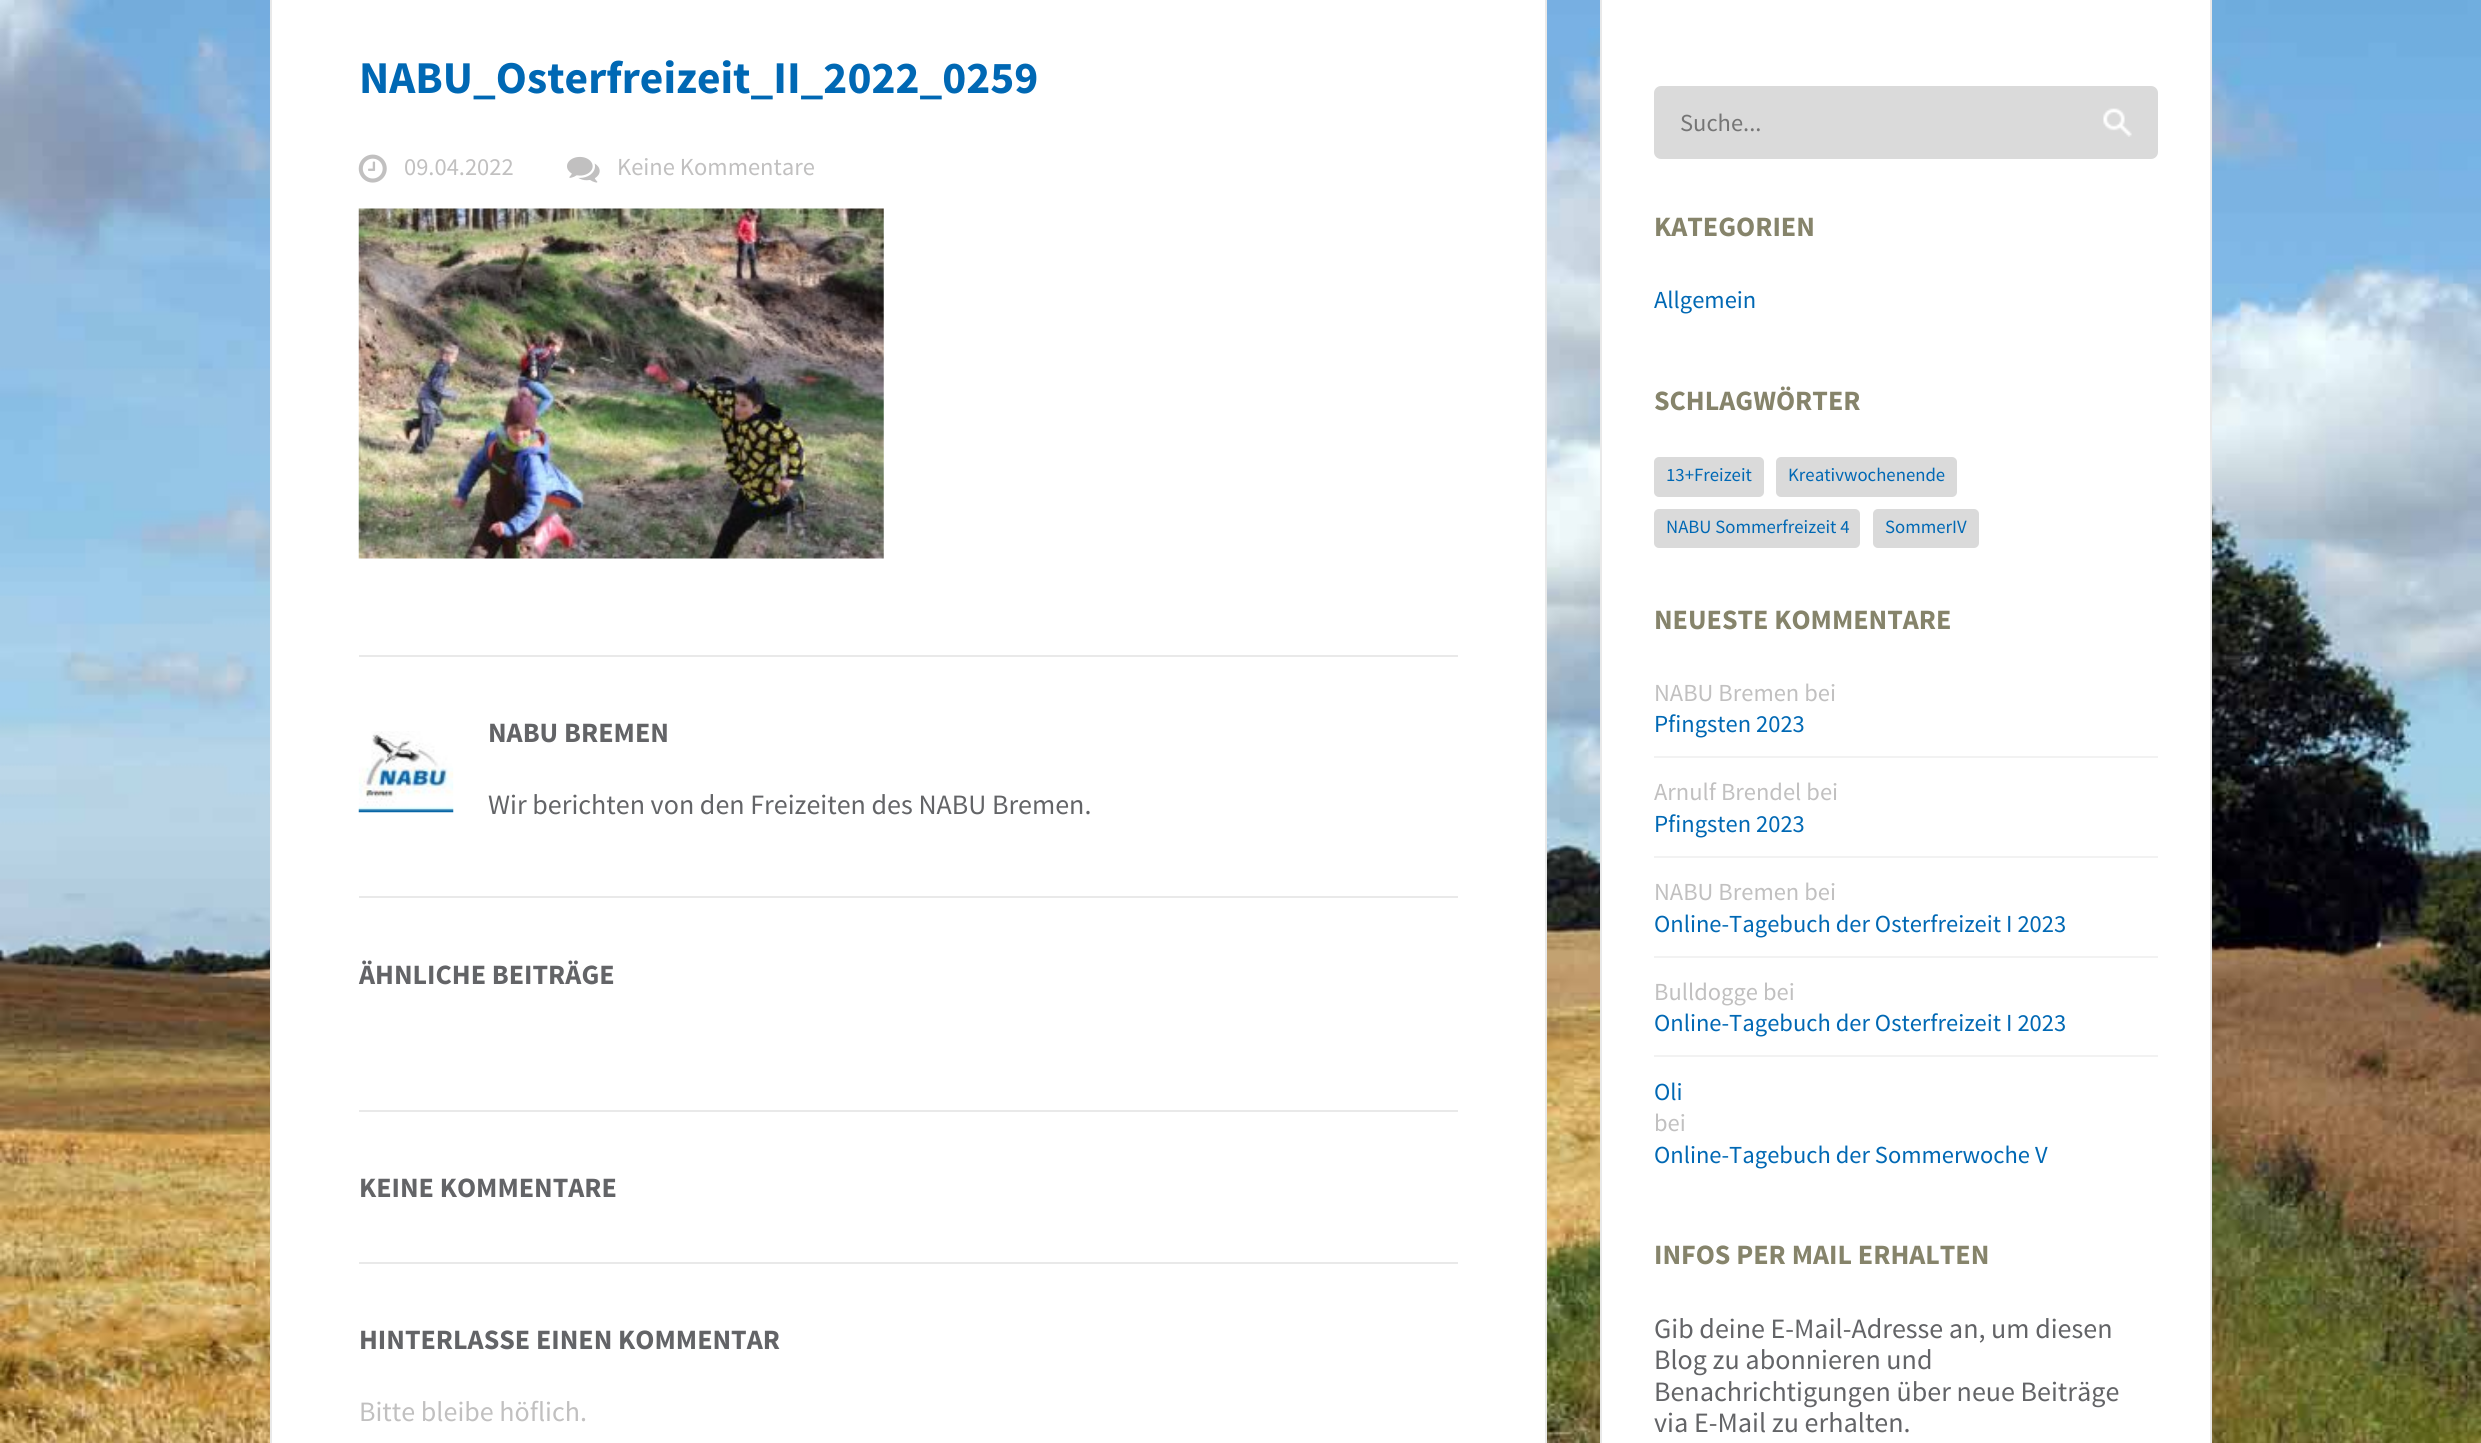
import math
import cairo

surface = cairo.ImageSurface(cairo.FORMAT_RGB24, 2481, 1443)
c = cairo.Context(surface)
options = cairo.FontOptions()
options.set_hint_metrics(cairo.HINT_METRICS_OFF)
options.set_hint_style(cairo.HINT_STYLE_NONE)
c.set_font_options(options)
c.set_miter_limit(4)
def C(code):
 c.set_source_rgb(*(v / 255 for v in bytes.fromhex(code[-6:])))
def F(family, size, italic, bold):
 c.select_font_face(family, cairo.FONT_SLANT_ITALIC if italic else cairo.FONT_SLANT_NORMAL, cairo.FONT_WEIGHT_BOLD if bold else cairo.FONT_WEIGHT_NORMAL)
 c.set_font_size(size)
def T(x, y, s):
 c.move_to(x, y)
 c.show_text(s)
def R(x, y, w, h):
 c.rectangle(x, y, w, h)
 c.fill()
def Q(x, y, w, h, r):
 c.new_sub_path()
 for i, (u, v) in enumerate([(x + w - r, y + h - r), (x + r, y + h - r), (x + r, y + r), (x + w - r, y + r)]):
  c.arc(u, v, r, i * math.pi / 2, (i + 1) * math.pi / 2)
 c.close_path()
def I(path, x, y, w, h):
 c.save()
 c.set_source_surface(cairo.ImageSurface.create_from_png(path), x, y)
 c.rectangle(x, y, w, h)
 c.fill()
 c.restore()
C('ffffff')
c.paint()
I('1.png',0,0,2481,1443)
C('ffffff')
R(272,0,1273,1443)
C('e9e9e9')
R(1545,0,2,1443)
R(270,0,2,1443)
F('Source Sans Pro',45.5,0,1)
C('0068b4')
T(359,93,'NABU_Osterfreizeit_II_2022_0259')
I('2.png',358,154,29,29)
F('Source Sans Pro',24.5,0,0)
C('c1c0c0')
T(404,175,'09.04.2022')
I('3.png',567,156,33,27)
T(617,175,'Keine Kommentare')
I('4.png',358,208,526,351)
C('e9e9e9')
R(359,655,1099,2)
I('5.png',358,731,96,82)
F('Source Sans Pro',28,0,1)
C('636467')
T(488,742,'NABU BREMEN')
F('Source Sans Pro',28,0,0)
T(488,814,'Wir berichten von den Freizeiten des NABU Bremen.')
C('e9e9e9')
R(359,896,1099,2)
F('Source Sans Pro',28,0,1)
C('636467')
T(359,984,'ÄHNLICHE BEITRÄGE')
C('e9e9e9')
R(359,1110,1099,2)
C('636467')
T(359,1197,'KEINE KOMMENTARE')
C('e9e9e9')
R(359,1262,1099,2)
C('636467')
T(359,1349,'HINTERLASSE EINEN KOMMENTAR')
F('Source Sans Pro',28,0,0)
C('c1c0c0')
T(359,1421,'Bitte bleibe höflich.')
C('ffffff')
c.rectangle(1601,-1,610,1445)
c.fill_preserve()
C('e9e9e9')
c.stroke()
C('dadada')
Q(1654,86,504,73,7)
c.fill()
F('Source Sans Pro',24.5,0,0)
C('757575')
T(1680,131,'Suche...')
I('6.png',2103,108,29,29)
F('Source Sans Pro',28,0,1)
C('86846b')
T(1654,236,'KATEGORIEN')
F('Source Sans Pro',24.5,0,0)
C('0068b4')
T(1654,308,'Allgemein')
F('Source Sans Pro',28,0,1)
C('86846b')
T(1654,410,'SCHLAGWÖRTER')
C('dadada')
Q(1654,457,110,40,5)
c.fill()
F('Source Sans Pro',18.75,0,0)
C('0068b4')
T(1666,481,'13+Freizeit')
C('dadada')
Q(1776,457,181,40,5)
c.fill()
C('0068b4')
T(1788,481,'Kreativwochenende')
C('dadada')
Q(1654,509,206,39,5)
c.fill()
C('0068b4')
T(1666,533,'NABU Sommerfreizeit 4')
C('dadada')
Q(1873,509,106,39,5)
c.fill()
C('0068b4')
T(1885,533,'SommerIV')
F('Source Sans Pro',28,0,1)
C('86846b')
T(1654,629,'NEUESTE KOMMENTARE')
C('f2f2f2')
R(1654,756,504,2)
F('Source Sans Pro',24.5,0,0)
C('c1c0c0')
T(1654,701,'NABU Bremen bei')
C('0068b4')
T(1654,732,'Pfingsten 2023')
C('f2f2f2')
R(1654,856,504,2)
C('c1c0c0')
T(1654,800,'Arnulf Brendel bei')
C('0068b4')
T(1654,832,'Pfingsten 2023')
C('f2f2f2')
R(1654,956,504,2)
C('c1c0c0')
T(1654,900,'NABU Bremen bei')
C('0068b4')
T(1654,932,'Online-Tagebuch der Osterfreizeit I 2023')
C('f2f2f2')
R(1654,1055,504,2)
C('c1c0c0')
T(1654,1000,'Bulldogge bei')
C('0068b4')
T(1654,1031,'Online-Tagebuch der Osterfreizeit I 2023')
T(1654,1100,'Oli')
C('c1c0c0')
T(1654,1131,'bei')
C('0068b4')
T(1654,1163,'Online-Tagebuch der Sommerwoche V')
F('Source Sans Pro',28,0,1)
C('86846b')
T(1654,1264,'INFOS PER MAIL ERHALTEN')
F('Source Sans Pro',28,0,0)
C('636467')
T(1654,1338,'Gib deine E-Mail-Adresse an, um diesen')
T(1654,1369,'Blog zu abonnieren und')
T(1654,1401,'Benachrichtigungen über neue Beiträge')
T(1654,1432,'via E-Mail zu erhalten.')
surface.write_to_png('o.png')
